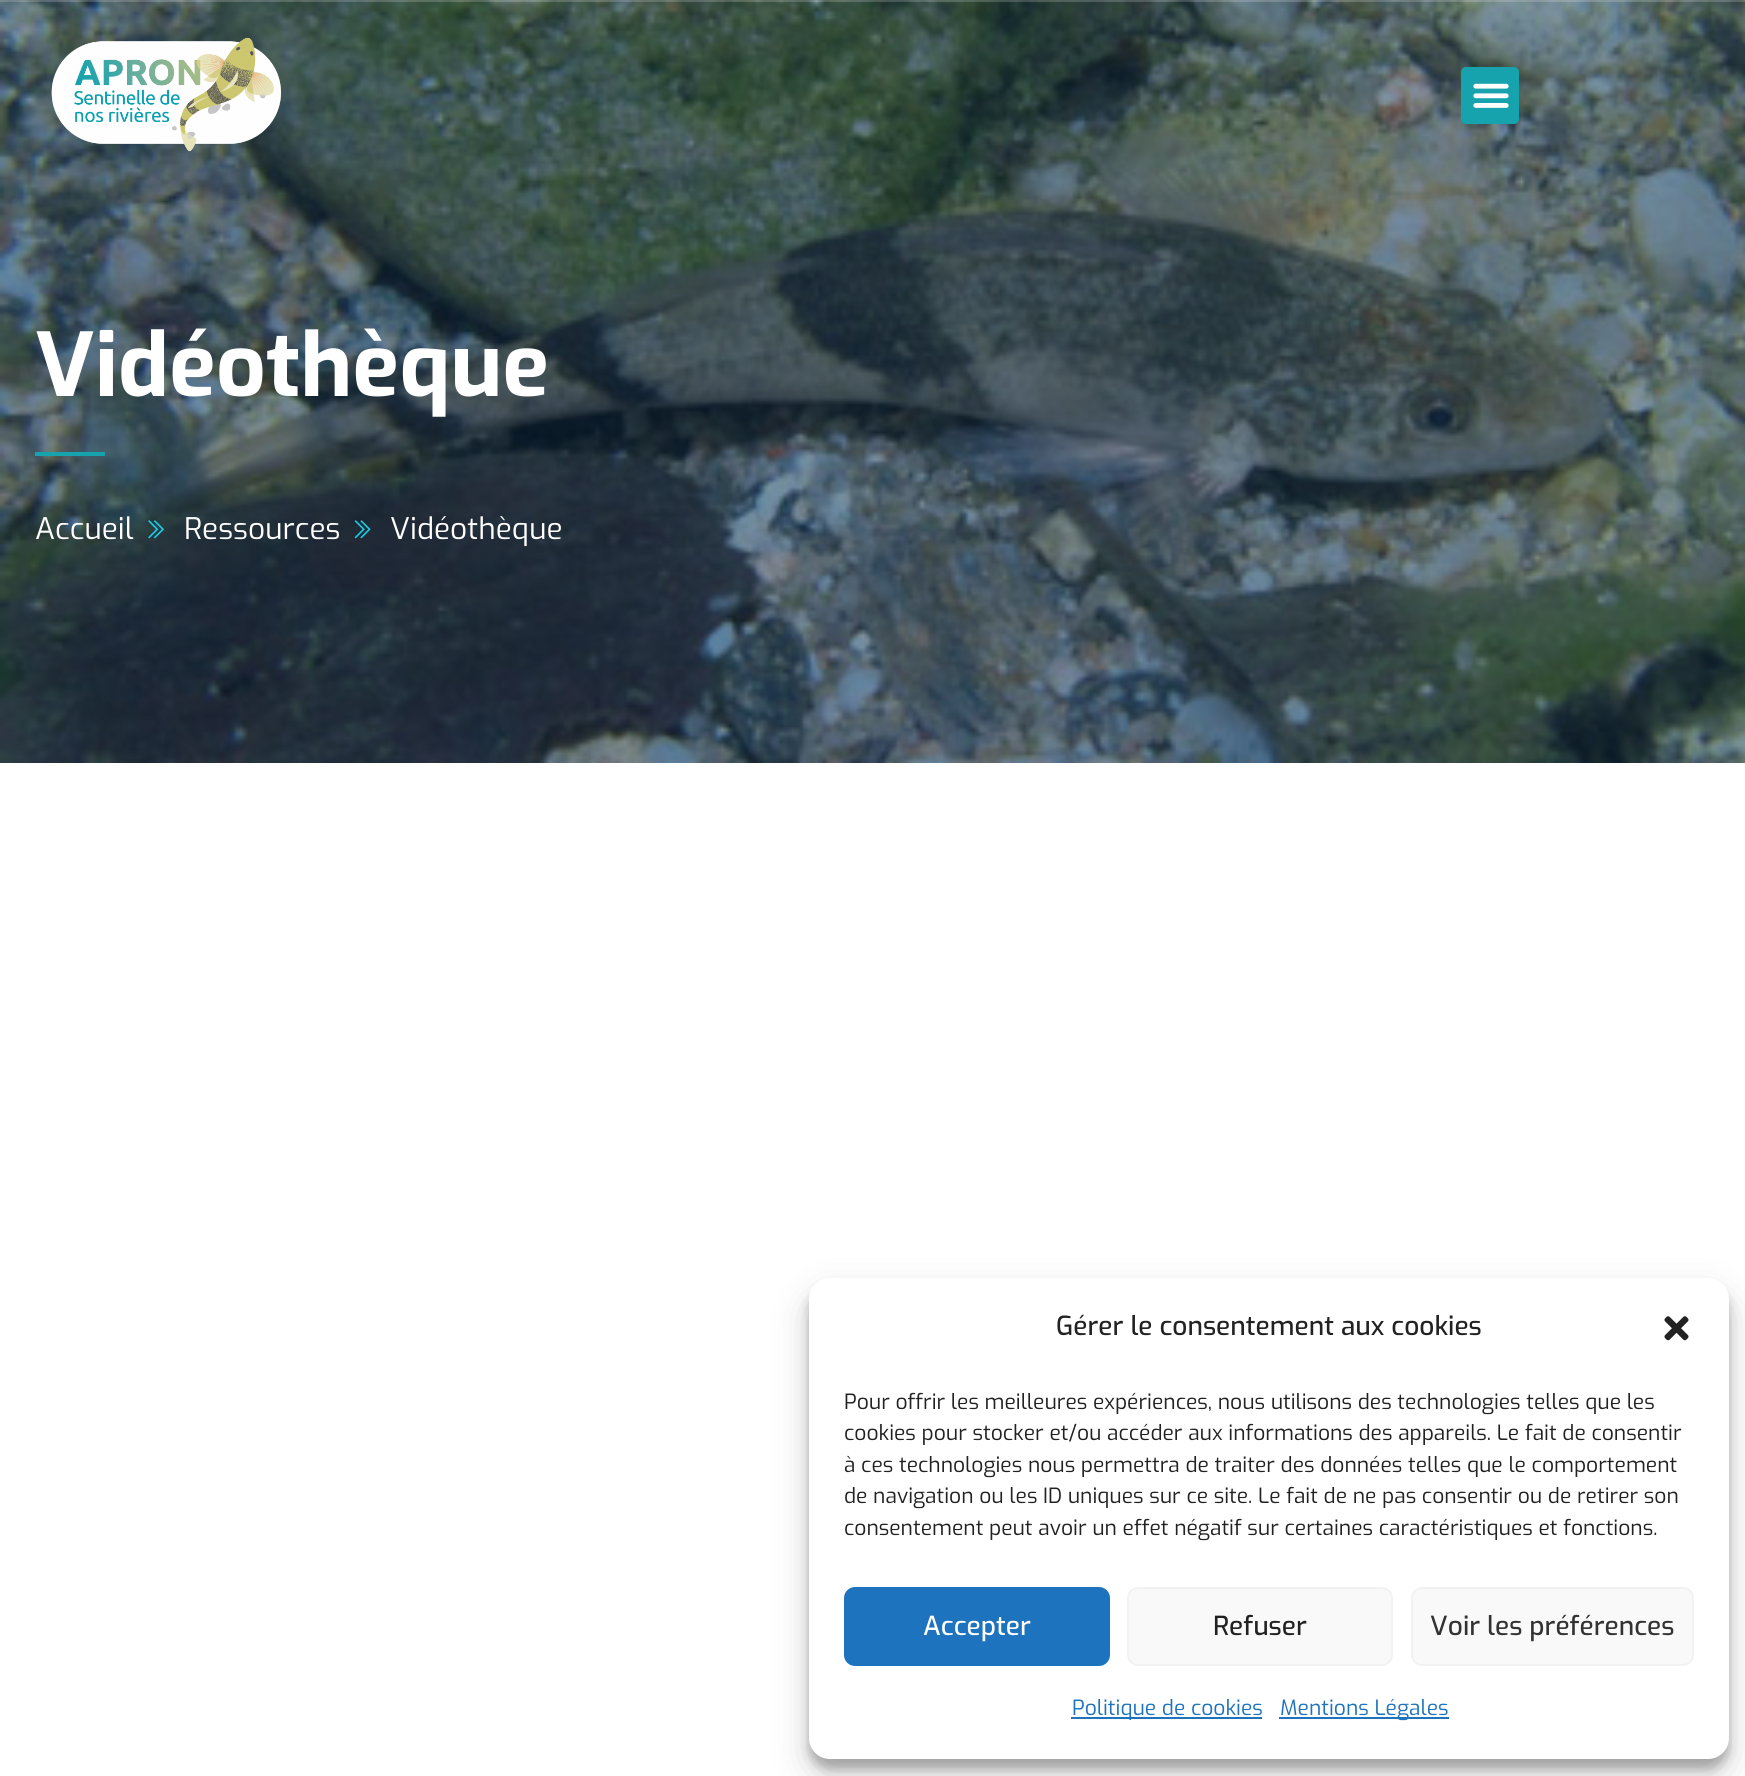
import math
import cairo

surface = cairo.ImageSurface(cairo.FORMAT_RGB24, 1745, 1776)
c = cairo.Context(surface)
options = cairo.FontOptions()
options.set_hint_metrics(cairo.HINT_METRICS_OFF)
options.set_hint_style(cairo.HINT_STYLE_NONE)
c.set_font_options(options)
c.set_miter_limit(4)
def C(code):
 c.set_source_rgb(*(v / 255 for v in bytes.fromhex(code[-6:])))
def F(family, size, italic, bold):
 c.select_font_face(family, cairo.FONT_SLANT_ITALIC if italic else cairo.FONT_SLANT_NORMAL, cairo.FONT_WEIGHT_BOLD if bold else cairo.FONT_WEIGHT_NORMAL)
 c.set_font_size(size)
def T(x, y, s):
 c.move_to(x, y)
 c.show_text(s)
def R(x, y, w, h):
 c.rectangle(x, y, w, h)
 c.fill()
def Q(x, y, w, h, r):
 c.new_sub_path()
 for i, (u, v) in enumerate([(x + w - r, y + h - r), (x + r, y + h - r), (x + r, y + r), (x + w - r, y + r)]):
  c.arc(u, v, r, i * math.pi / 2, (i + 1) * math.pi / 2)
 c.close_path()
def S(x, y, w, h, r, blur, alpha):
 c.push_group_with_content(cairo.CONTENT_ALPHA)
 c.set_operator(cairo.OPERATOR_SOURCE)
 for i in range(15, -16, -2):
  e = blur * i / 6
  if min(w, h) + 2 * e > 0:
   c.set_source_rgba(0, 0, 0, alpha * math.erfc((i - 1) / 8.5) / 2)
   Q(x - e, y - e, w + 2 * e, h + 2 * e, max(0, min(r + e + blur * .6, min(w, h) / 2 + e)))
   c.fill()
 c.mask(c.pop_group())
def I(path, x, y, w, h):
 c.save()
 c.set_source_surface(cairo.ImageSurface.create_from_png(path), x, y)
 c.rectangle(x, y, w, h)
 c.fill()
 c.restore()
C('ffffff')
c.paint()
I('3.png',0,0,1745,763)
c.set_source_rgba(1,1,1,0.18)
R(0,0,1745,2)
I('1.png',51,37,231,115)
C('16a3ae')
Q(1461,67,58,57,5)
c.fill()
I('2.png',1473,83,36,25)
F('Exo',87.5,0,1)
C('ffffff')
T(35,396,'Vidéothèque')
C('16a3ae')
R(35,452,70,4)
F('Exo',29.75,0,0)
C('ffffff')
T(35,539,'Accueil')
I('4.png',148,520,16,19)
T(184,539,'Ressources')
I('5.png',354,520,17,19)
T(390,539,'Vidéothèque')
C('000000')
S(809,1288,920,481,21,5,.23)
S(809,1295,920,481,21,17.5,.19)
C('ffffff')
Q(809,1278,920,481,21)
c.fill()
F('Exo Medium',26.25,0,0)
C('222222')
T(1056,1335,'Gérer le consentement aux cookies')
I('6.png',1664,1316,25,25)
F('Exo',21,0,0)
T(844,1409,'Pour offrir les meilleures expériences, nous utilisons des technologies telles que les')
T(844,1440,'cookies pour stocker et/ou accéder aux informations des appareils. Le fait de consentir')
T(844,1472,'à ces technologies nous permettra de traiter des données telles que le comportement')
T(844,1503,'de navigation ou les ID uniques sur ce site. Le fait de ne pas consentir ou de retirer son')
T(844,1535,'consentement peut avoir un effet négatif sur certaines caractéristiques et fonctions.')
C('1e73be')
Q(845,1588,264,77,10)
c.fill_preserve()
c.stroke()
F('Exo Medium',26.25,0,0)
C('ffffff')
T(923,1635,'Accepter')
C('f9f9f9')
Q(1128,1588,264,77,10)
c.fill_preserve()
C('f2f2f2')
c.stroke()
C('222222')
T(1213,1635,'Refuser')
C('f9f9f9')
Q(1412,1588,281,77,10)
c.fill_preserve()
C('f2f2f2')
c.stroke()
C('333333')
T(1430,1635,'Voir les préférences')
C('1e73be')
R(1071,1717,191,2)
F('Exo',21,0,0)
T(1072,1715,'Politique de cookies')
R(1279,1717,170,2)
T(1280,1715,'Mentions Légales')
surface.write_to_png('o.png')
